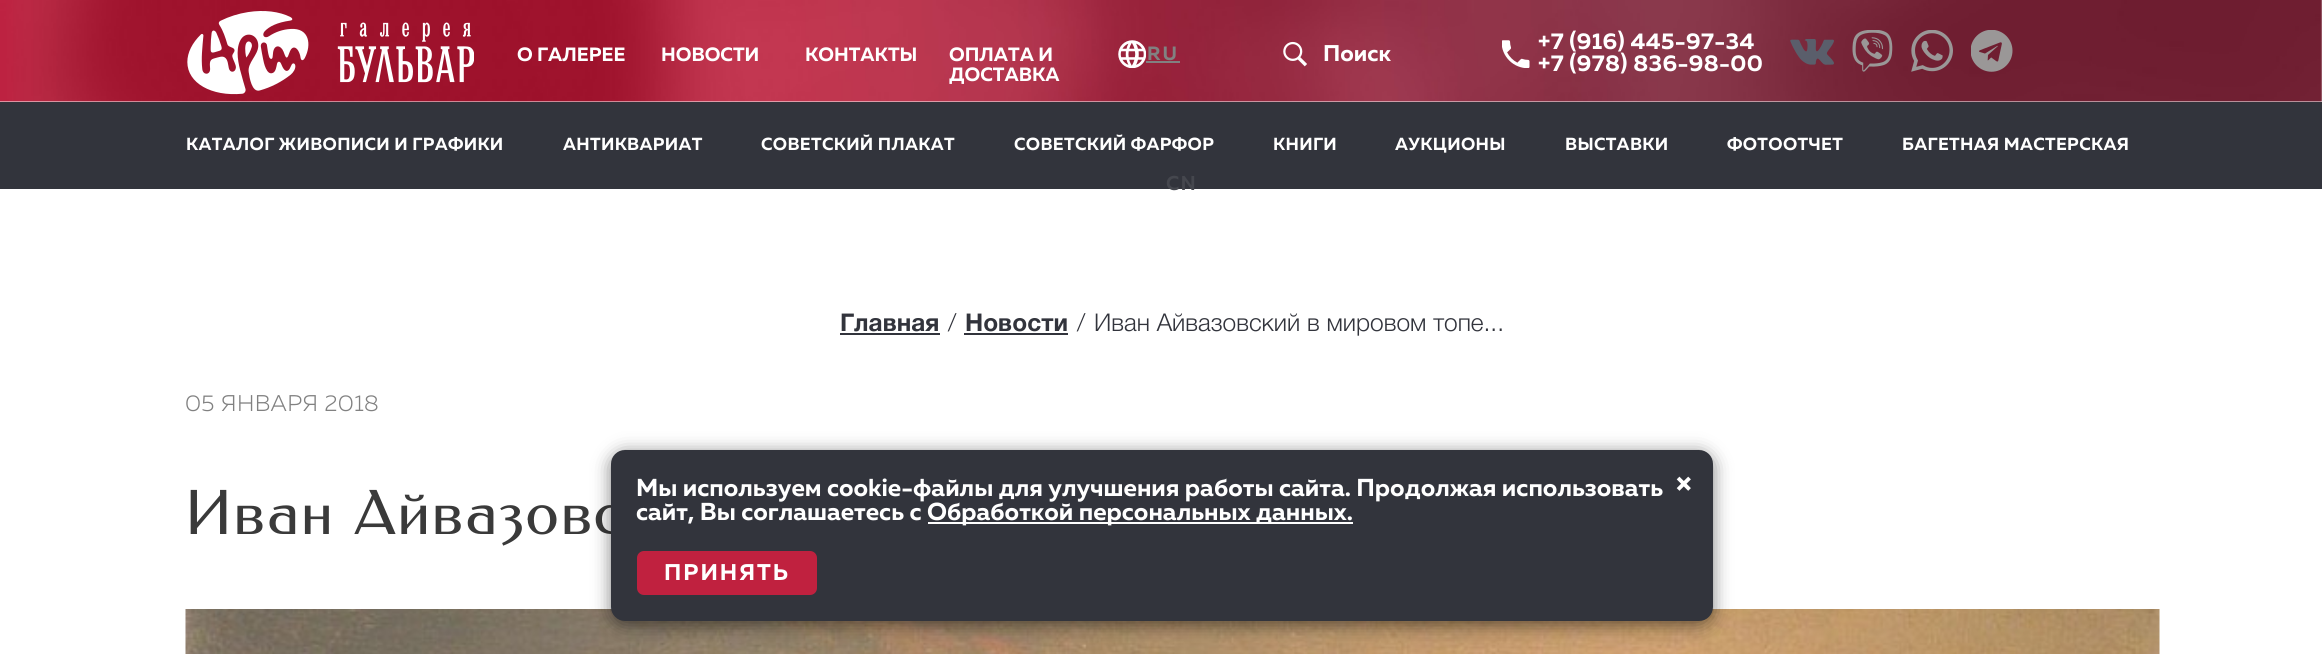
import math
import cairo

surface = cairo.ImageSurface(cairo.FORMAT_RGB24, 2322, 654)
c = cairo.Context(surface)
options = cairo.FontOptions()
options.set_hint_metrics(cairo.HINT_METRICS_OFF)
options.set_hint_style(cairo.HINT_STYLE_NONE)
c.set_font_options(options)
c.set_miter_limit(4)
def C(code):
 c.set_source_rgb(*(v / 255 for v in bytes.fromhex(code[-6:])))
def F(family, size, italic, bold):
 c.select_font_face(family, cairo.FONT_SLANT_ITALIC if italic else cairo.FONT_SLANT_NORMAL, cairo.FONT_WEIGHT_BOLD if bold else cairo.FONT_WEIGHT_NORMAL)
 c.set_font_size(size)
def T(x, y, s):
 c.move_to(x, y)
 c.show_text(s)
def L(x, y, s, letter, word):
 c.move_to(x, y)
 for ch in s:
  c.show_text(ch)
  c.rel_move_to(letter + word * (ch == ' '), 0)
def R(x, y, w, h):
 c.rectangle(x, y, w, h)
 c.fill()
def Q(x, y, w, h, r):
 c.new_sub_path()
 for i, (u, v) in enumerate([(x + w - r, y + h - r), (x + r, y + h - r), (x + r, y + r), (x + w - r, y + r)]):
  c.arc(u, v, r, i * math.pi / 2, (i + 1) * math.pi / 2)
 c.close_path()
def S(x, y, w, h, r, blur, alpha):
 c.push_group_with_content(cairo.CONTENT_ALPHA)
 c.set_operator(cairo.OPERATOR_SOURCE)
 for i in range(15, -16, -2):
  e = blur * i / 6
  if min(w, h) + 2 * e > 0:
   c.set_source_rgba(0, 0, 0, alpha * math.erfc((i - 1) / 8.5) / 2)
   Q(x - e, y - e, w + 2 * e, h + 2 * e, max(0, min(r + e + blur * .6, min(w, h) / 2 + e)))
   c.fill()
 c.mask(c.pop_group())
def I(path, x, y, w, h):
 c.save()
 c.set_source_surface(cairo.ImageSurface.create_from_png(path), x, y)
 c.rectangle(x, y, w, h)
 c.fill()
 c.restore()
C('ffffff')
c.paint()
I('1.png',0,0,2322,102)
I('2.png',187,11,287,84)
F('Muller',19.25,0,1)
C('ffffff')
T(517,61,'О ГАЛЕРЕЕ')
T(661,61,'НОВОСТИ')
T(805,61,'КОНТАКТЫ')
T(949,61,'ОПЛАТА И')
T(949,81,'ДОСТАВКА')
I('3.png',1118,40,28,28)
C('818181')
L(1147,60,'RU',2,0)
R(1146,61,34,2)
C('32343c')
R(0,102,2322,87)
F('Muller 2',19.25,0,1)
C('45474e')
L(1166,190,'CN',2,0)
I('4.png',1283,41,24,26)
F('Muller',22.75,0,1)
C('ffffff')
T(1323,61,'Поиск')
I('5.png',1502,40,28,28)
L(1538,49,'+7 (916) 445-97-34',.35,0)
L(1538,71,'+7 (978) 836-98-00',.35,0)
I('6.png',1790,39,44,26)
I('7.png',1852,30,41,42)
I('8.png',1911,30,42,42)
I('9.png',1971,30,42,42)
F('Muller',17.5,0,1)
L(186,150,'КАТАЛОГ ЖИВОПИСИ И ГРАФИКИ',.35,0)
L(563,150,'АНТИКВАРИАТ',.35,0)
L(761,150,'СОВЕТСКИЙ ПЛАКАТ',.35,0)
L(1014,150,'СОВЕТСКИЙ ФАРФОР',.35,0)
L(1273,150,'КНИГИ',.35,0)
L(1395,150,'АУКЦИОНЫ',.35,0)
L(1565,150,'ВЫСТАВКИ',.35,0)
L(1727,150,'ФОТООТЧЕТ',.35,0)
L(1902,150,'БАГЕТНАЯ МАСТЕРСКАЯ',.35,0)
F('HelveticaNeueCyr',24.5,0,1)
C('32343c')
T(840,331,'Главная')
R(840,333,100,2)
F('HelveticaNeueCyr Light',24.5,0,0)
T(948,331,'/')
F('HelveticaNeueCyr',24.5,0,1)
T(965,331,'Новости')
R(964,333,104,2)
F('HelveticaNeueCyr Light',24.5,0,0)
T(1077,331,'/')
T(1094,331,'Иван Айвазовский в мировом топе...')
F('Muller Light',22.75,0,0)
C('818181')
L(185,411,'05 ЯНВАРЯ 2018',.35,0)
F('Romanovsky',63,0,0)
C('3a3a3a')
L(185,534,'Иван Айвазовс',1,0)
I('10.png',185,609,1975,45)
C('000000')
S(611,453,1102,172,14,9,.5)
C('32343c')
Q(611,450,1102,171,14)
c.fill()
F('Muller',24.5,0,1)
C('ffffff')
T(636,496,'Мы используем cookie-файлы для улучшения работы сайта. Продолжая использовать')
T(636,520,'сайт, Вы соглашаетесь с')
R(928,522,425,2)
T(927,520,'Обработкой персональных данных.')
F('Muller',35,0,1)
L(1675,496,'×',2,0)
C('c0213f')
Q(637,551,180,44,7)
c.fill()
F('Muller',22.75,0,1)
C('ffffff')
L(664,580,'ПРИНЯТЬ',2,0)
surface.write_to_png('o.png')
